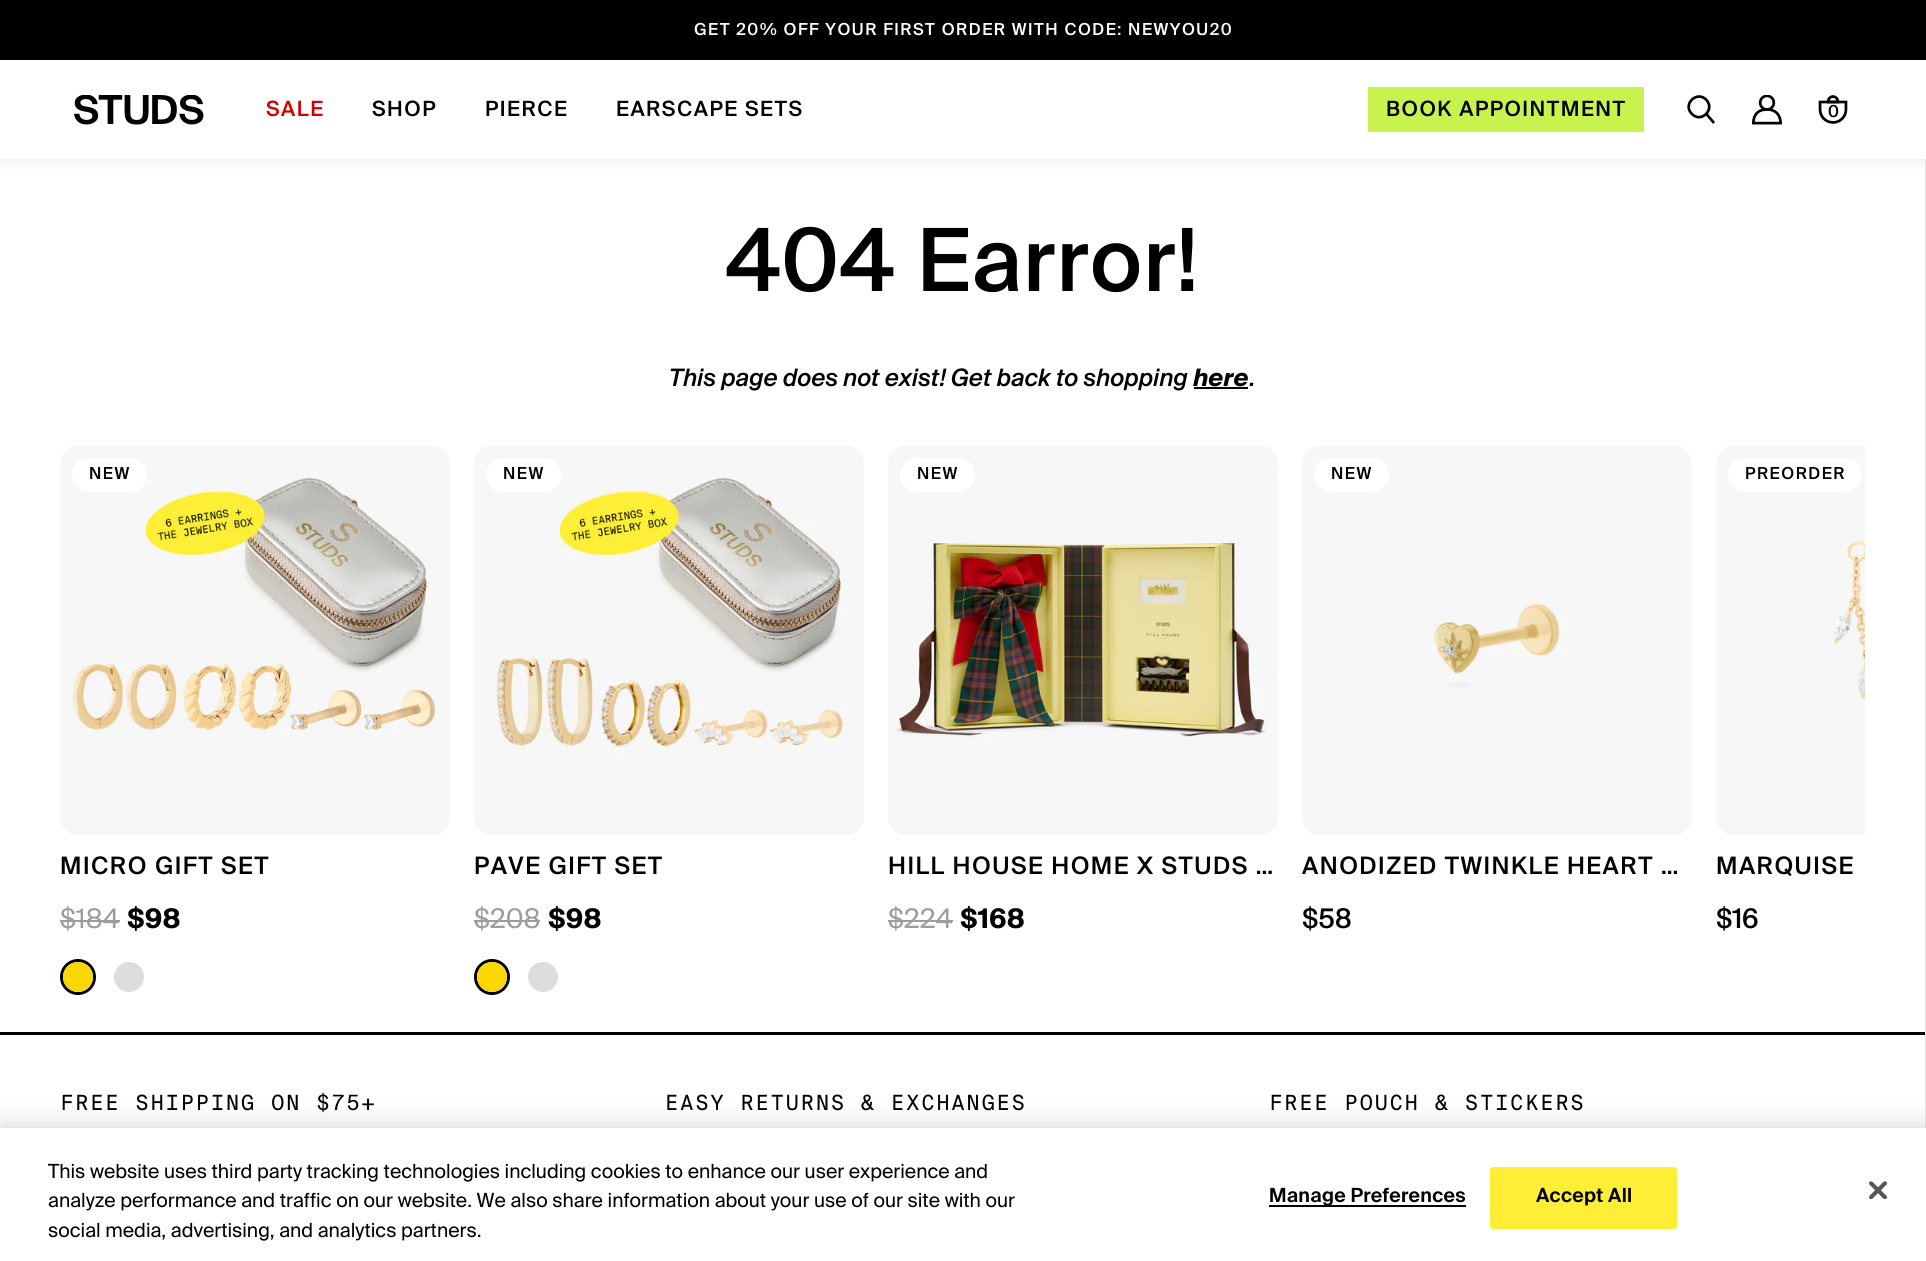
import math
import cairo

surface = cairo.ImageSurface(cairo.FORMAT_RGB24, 1926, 1261)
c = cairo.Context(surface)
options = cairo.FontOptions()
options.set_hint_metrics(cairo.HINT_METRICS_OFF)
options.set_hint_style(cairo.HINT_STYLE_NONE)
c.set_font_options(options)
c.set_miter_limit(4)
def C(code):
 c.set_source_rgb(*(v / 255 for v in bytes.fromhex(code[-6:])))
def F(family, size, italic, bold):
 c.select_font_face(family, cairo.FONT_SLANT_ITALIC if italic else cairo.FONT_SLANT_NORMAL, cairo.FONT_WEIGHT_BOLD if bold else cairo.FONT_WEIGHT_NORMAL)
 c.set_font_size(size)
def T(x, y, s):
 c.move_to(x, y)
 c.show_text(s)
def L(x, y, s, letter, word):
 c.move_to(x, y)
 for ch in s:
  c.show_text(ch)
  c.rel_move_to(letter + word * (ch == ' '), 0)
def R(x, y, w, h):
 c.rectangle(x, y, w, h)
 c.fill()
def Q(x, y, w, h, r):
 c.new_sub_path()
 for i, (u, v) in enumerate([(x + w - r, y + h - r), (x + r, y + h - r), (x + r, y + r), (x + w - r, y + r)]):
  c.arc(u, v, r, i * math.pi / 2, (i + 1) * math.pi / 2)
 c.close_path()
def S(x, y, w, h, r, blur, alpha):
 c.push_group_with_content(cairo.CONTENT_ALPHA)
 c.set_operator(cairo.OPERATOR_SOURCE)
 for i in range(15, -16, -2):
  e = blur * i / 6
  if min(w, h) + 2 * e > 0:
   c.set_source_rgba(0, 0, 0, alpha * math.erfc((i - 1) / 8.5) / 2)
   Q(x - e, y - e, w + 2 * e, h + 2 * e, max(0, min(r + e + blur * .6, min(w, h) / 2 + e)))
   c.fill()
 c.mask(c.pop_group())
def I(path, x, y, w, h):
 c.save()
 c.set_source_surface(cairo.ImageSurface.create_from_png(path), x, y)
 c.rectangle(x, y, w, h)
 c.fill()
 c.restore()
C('ffffff')
c.paint()
C('e6e6e6')
R(1925,159,1,969)
C('6c6c6c')
S(0,0,1926,159,0,7.5,.15)
C('ffffff')
R(0,60,1926,99)
C('000000')
R(0,0,1926,60)
F('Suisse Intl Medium',16.5,0,0)
C('ffffff')
L(694,35,'GET 20% OFF YOUR FIRST ORDER WITH CODE: NEWYOU20',1.5,0)
I('1.png',74,95,130,30)
F('Suisse Intl Medium',21,0,0)
C('d40000')
L(266,116,'SALE',1.5,0)
C('000000')
L(372,116,'SHOP',1.5,0)
L(485,116,'PIERCE',1.5,0)
L(616,116,'EARSCAPE SETS',1.5,0)
C('c8f34e')
R(1368,87,276,45)
C('000000')
L(1386,116,'BOOK APPOINTMENT',1.5,0)
c.new_path()
c.move_to(1706,113.5)
c.line_to(1714,123)
c.move_to(1706,99.5)
c.curve_to(1697,90.5,1682.5,104,1691.5,113.5)
c.curve_to(1700.5,124,1716,109.5,1706,99.5)
c.close_path()
c.set_line_width(2.7)
c.stroke()
I('2.png',1752,95,30,30)
I('3.png',1818,95,30,29)
F('Suisse Intl Medium',16.5,0,0)
T(1828,117,'0')
F('Suisse Intl Medium',87,0,0)
L(726,291,'404 Earror!',1.5,0)
F('Suisse Intl Medium',24,1,0)
T(669,386,'This page does not exist! Get back to shopping')
F('Suisse Intl',24,1,1)
T(1193,386,'here')
R(1194,387,54,2)
F('Suisse Intl Medium',24,1,0)
T(1249,386,'.')
I('4.png',60,446,390,389)
C('ffffff')
Q(72,458,75,34,17)
c.fill()
F('Suisse Intl Medium',16.5,0,0)
C('000000')
L(89,479,'NEW',1.5,0)
F('Suisse Intl Medium',24,0,0)
L(60,874,'MICRO GIFT SET',1.5,0)
F('Suisse Intl',27,0,0)
C('9c9c9c')
T(60,928,'$184')
R(60,920,60,2)
F('Suisse Intl',27,0,1)
C('000000')
T(127,928,'$98')
c.new_path()
c.arc(78,977,16.5,0,2 * math.pi)
c.set_line_width(3)
c.stroke()
C('fbd702')
c.arc(78,977,15,0,2 * math.pi)
c.fill()
C('dddddf')
c.arc(129,977,15,0,2 * math.pi)
c.fill()
I('5.png',474,446,390,389)
C('ffffff')
Q(486,458,75,34,17)
c.fill()
F('Suisse Intl Medium',16.5,0,0)
C('000000')
L(503,479,'NEW',1.5,0)
F('Suisse Intl Medium',24,0,0)
L(474,874,'PAVE GIFT SET',1.5,0)
F('Suisse Intl',27,0,0)
C('9c9c9c')
T(474,928,'$208')
R(474,920,66,2)
F('Suisse Intl',27,0,1)
C('000000')
T(548,928,'$98')
c.new_path()
c.arc(492,977,16.5,0,2 * math.pi)
c.stroke()
C('fbd702')
c.arc(492,977,15,0,2 * math.pi)
c.fill()
C('dddddf')
c.arc(543,977,15,0,2 * math.pi)
c.fill()
I('6.png',888,446,390,389)
C('ffffff')
Q(900,458,75,34,17)
c.fill()
F('Suisse Intl Medium',16.5,0,0)
C('000000')
L(917,479,'NEW',1.5,0)
F('Suisse Intl Medium',24,0,0)
L(888,874,'HILL HOUSE HOME X STUDS …',1.5,0)
F('Suisse Intl',27,0,0)
C('9c9c9c')
T(888,928,'$224')
R(888,920,65,2)
F('Suisse Intl',27,0,1)
C('000000')
T(960,928,'$168')
I('7.png',1302,446,390,389)
C('ffffff')
Q(1314,458,75,34,17)
c.fill()
F('Suisse Intl Medium',16.5,0,0)
C('000000')
L(1331,479,'NEW',1.5,0)
F('Suisse Intl Medium',24,0,0)
L(1302,874,'ANODIZED TWINKLE HEART …',1.5,0)
F('Suisse Intl Medium',27,0,0)
T(1302,928,'$58')
I('8.png',1716,446,149,389)
C('ffffff')
Q(1728,458,134,34,17)
c.fill()
F('Suisse Intl Medium',16.5,0,0)
C('000000')
L(1745,479,'PREORDER',1.5,0)
F('Suisse Intl Medium',24,0,0)
L(1716,874,'MARQUISE',1.5,0)
F('Suisse Intl Medium',27,0,0)
T(1716,928,'$16')
R(0,1032,1925,3)
F('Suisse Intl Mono',21,0,0)
L(60,1110,'FREE SHIPPING ON $75+',1.5,0)
L(665,1110,'EASY RETURNS & EXCHANGES',1.5,0)
L(1269,1110,'FREE POUCH & STICKERS',1.5,0)
C('000000')
S(0,1128,1926,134,0,13.5,.2)
C('ffffff')
R(0,1128,1926,133)
F('Suisse Intl',19.5,0,0)
C('000000')
T(48,1178,'This website uses third party tracking technologies including cookies to enhance our user experience and')
T(48,1207,'analyze performance and traffic on our website. We also share information about your use of our site with our')
T(48,1237,'social media, advertising, and analytics partners.')
R(1269,1205,197,2)
F('Suisse Intl SemiBold',19.5,0,0)
L(1269,1202,'Manage Preferences',.25,0)
C('feee35')
Q(1491,1168,185,60,2)
c.fill_preserve()
c.set_line_width(2)
c.stroke()
C('000000')
L(1536,1202,'Accept All',.25,0)
I('9.png',1869,1181,18,18)
surface.write_to_png('o.png')
